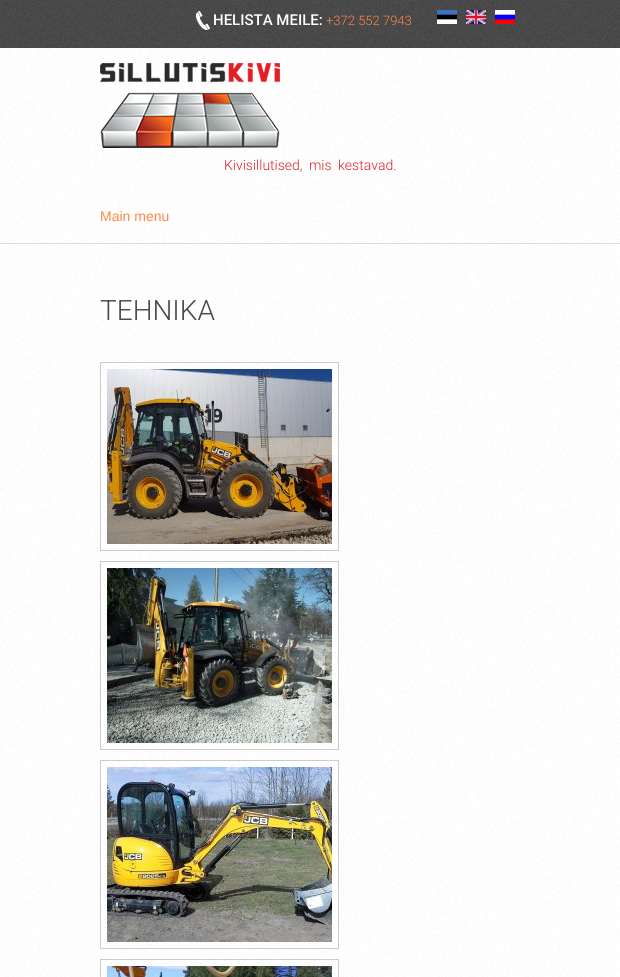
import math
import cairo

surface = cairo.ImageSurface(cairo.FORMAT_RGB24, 620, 977)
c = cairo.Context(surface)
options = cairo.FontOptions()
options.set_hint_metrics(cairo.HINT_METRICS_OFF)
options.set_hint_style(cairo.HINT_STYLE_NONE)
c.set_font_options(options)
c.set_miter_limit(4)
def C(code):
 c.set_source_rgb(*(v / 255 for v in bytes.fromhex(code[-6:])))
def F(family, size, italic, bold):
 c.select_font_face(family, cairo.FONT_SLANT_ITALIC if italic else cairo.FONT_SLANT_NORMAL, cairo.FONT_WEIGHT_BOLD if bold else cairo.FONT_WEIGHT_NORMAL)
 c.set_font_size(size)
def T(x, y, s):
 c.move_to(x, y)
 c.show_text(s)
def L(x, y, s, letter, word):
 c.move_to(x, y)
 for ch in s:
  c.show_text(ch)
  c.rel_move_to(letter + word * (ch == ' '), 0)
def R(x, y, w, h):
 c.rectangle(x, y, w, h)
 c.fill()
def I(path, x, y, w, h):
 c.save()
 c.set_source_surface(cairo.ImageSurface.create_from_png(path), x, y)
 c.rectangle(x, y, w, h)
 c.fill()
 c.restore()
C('ffffff')
c.paint()
I('1.png',0,48,620,195)
I('2.png',0,0,620,48)
I('3.png',196,11,14,19)
F('Roboto Medium',15,0,0)
C('ffffff')
T(213,25,'HELISTA MEILE:')
F('Roboto Light',13,0,0)
C('fd8843')
T(326,25,'+372 552 7943')
I('4.png',437,10,20,14)
I('5.png',466,10,20,14)
I('6.png',495,10,20,14)
C('dbdbdb')
R(0,243,620,1)
I('7.png',100,63,180,85)
F('Roboto Light',14,0,0)
C('db2227')
L(224,170,'Kivisillutised, mis kestavad.',0,3)
F('Liberation Sans',14,0,0)
C('fd8843')
T(100,221,'Main menu')
I('8.png',0,244,620,733)
F('Roboto Light',28,0,0)
C('494949')
T(100,320,'TEHNIKA')
c.rectangle(100.5,362.5,238,188)
C('cccccc')
c.set_line_width(1)
c.stroke()
I('9.png',107,369,225,175)
c.rectangle(100.5,561.5,238,188)
c.stroke()
I('10.png',107,568,225,175)
c.rectangle(100.5,760.5,238,188)
c.stroke()
I('11.png',107,767,225,175)
c.rectangle(100.5,959.5,238,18)
c.stroke()
I('12.png',107,966,225,11)
surface.write_to_png('o.png')
